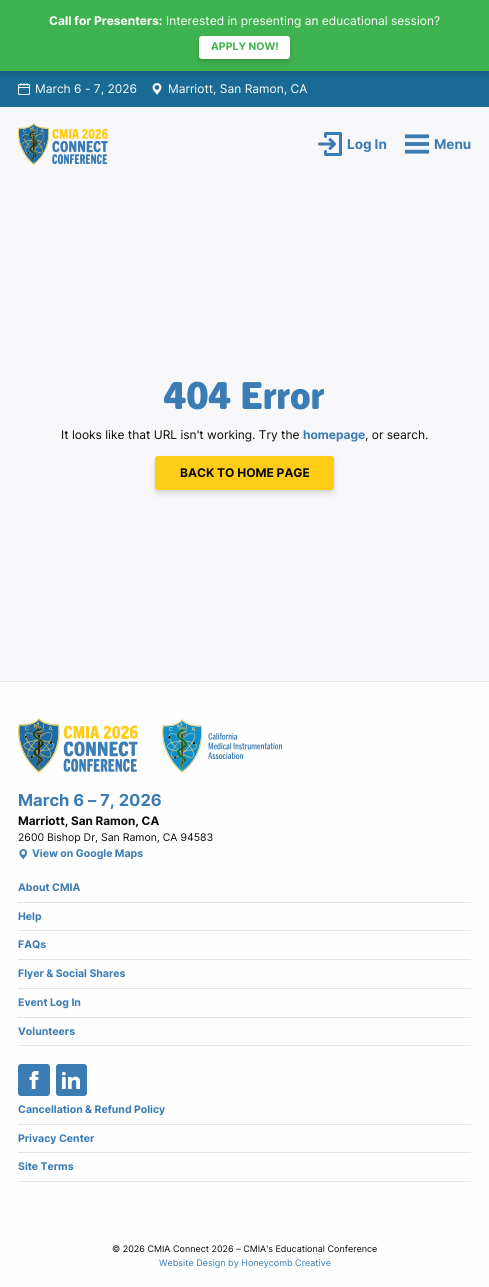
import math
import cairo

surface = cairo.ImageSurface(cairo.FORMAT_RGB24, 489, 1287)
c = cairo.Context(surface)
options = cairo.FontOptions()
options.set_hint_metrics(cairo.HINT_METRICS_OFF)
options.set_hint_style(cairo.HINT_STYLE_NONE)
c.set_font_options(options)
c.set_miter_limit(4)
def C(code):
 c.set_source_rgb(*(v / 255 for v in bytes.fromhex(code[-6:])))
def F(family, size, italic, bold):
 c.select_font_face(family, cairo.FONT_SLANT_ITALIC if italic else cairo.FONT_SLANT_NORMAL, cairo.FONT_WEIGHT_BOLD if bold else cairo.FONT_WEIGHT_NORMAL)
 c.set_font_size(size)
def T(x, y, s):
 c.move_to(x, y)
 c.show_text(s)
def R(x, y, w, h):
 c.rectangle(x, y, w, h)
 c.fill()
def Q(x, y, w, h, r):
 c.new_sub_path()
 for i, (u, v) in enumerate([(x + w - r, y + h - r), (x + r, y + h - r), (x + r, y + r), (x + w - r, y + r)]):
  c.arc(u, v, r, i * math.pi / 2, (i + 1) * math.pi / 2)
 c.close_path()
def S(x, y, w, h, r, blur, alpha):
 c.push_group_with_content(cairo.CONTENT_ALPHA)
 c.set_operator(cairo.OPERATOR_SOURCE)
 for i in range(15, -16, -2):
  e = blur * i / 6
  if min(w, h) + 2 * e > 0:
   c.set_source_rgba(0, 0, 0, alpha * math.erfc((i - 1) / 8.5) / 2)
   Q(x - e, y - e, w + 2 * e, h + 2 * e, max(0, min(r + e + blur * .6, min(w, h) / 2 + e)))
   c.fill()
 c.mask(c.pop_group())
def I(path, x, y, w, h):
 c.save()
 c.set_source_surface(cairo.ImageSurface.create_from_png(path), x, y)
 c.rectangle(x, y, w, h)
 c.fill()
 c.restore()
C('f8f7fa')
c.paint()
C('196b96')
R(0,71,489,36)
C('0a0a0a')
S(0,1,489,71,0,1.5,.08)
I('1.png',18,83,12,12)
I('2.png',152,83,10,12)
S(0,4,489,71,0,3,.11)
C('3fb34f')
R(0,0,489,71)
F('Inter',12,0,1)
C('fefefe')
T(49,25,'Call for Presenters:')
F('Inter',12,0,0)
T(166,25,'Interested in presenting an educational session?')
C('0a0a0a')
S(199,37,91,23,3,1.5,.08)
S(199,40,91,23,3,3,.11)
C('fefefe')
Q(199,36,91,23,3)
c.fill()
F('Inter',10.5,0,1)
C('3fb34f')
T(211,50,'APPLY NOW!')
F('Inter',12,0,0)
C('fefefe')
T(35,93,'March 6 - 7, 2026')
T(168,93,'Marriott, San Ramon, CA')
I('3.png',18,123,90,42)
I('4.png',318,132,24,24)
F('Inter',13.5,0,1)
C('3a7cb3')
T(347,149,'Log In')
I('5.png',405,134,24,20)
T(434,149,'Menu')
F('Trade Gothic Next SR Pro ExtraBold',37.5,0,0)
T(164,409,'404 Error')
F('Inter',12,0,0)
C('0a0a0a')
T(61,439,'It looks like that URL isn\'t working. Try the')
F('Inter',12,0,1)
C('3a7cb3')
T(303,439,'homepage')
F('Inter',12,0,0)
C('0a0a0a')
T(365,439,', or search.')
C('0a0a0a')
S(155,457,179,34,3,1.5,.08)
S(155,460,179,34,3,3,.11)
C('ffcd18')
Q(155,456,179,34,3)
c.fill()
F('Inter',12,0,1)
C('0a0a0a')
T(180,477,'BACK TO HOME PAGE')
C('e6e6e6')
R(0,681,489,1)
C('fefefe')
R(0,682,489,605)
I('6.png',18,718,120,55)
I('7.png',162,719,120,54)
F('Inter',16.5,0,1)
C('3a7cb3')
T(18,806,'March 6 – 7, 2026')
F('Inter',11.75,0,1)
C('0a0a0a')
T(18,825,'Marriott, San Ramon, CA')
F('Inter',10.5,0,0)
T(18,841,'2600 Bishop Dr, San Ramon, CA 94583')
I('8.png',19,849,9,10)
F('Inter',10.5,0,1)
C('3a7cb3')
T(32,857,'View on Google Maps')
C('e6e6e6')
R(18,902,453,1)
C('3a7cb3')
T(18,891,'About CMIA')
C('e6e6e6')
R(18,930,453,1)
C('3a7cb3')
T(18,920,'Help')
C('e6e6e6')
R(18,959,453,1)
C('3a7cb3')
T(18,948,'FAQs')
C('e6e6e6')
R(18,988,453,1)
C('3a7cb3')
T(18,977,'Flyer & Social Shares')
C('e6e6e6')
R(18,1017,453,1)
C('3a7cb3')
T(18,1006,'Event Log In')
C('e6e6e6')
R(18,1045,453,1)
C('3a7cb3')
T(18,1035,'Volunteers')
Q(18,1064,32,32,3)
c.fill()
I('9.png',29,1071,10,18)
Q(56,1064,31,32,3)
c.fill()
I('10.png',62,1071,18,18)
C('e6e6e6')
R(18,1124,453,1)
C('3a7cb3')
T(18,1113,'Cancellation & Refund Policy')
C('e6e6e6')
R(18,1152,453,1)
C('3a7cb3')
T(18,1142,'Privacy Center')
C('e6e6e6')
R(18,1181,453,1)
C('3a7cb3')
T(18,1170,'Site Terms')
F('Inter',9,0,0)
C('0a0a0a')
T(112,1252,'© 2026 CMIA Connect 2026 – CMIA\'s Educational Conference')
C('3a7cb3')
T(159,1266,'Website Design by Honeycomb Creative')
surface.write_to_png('o.png')
